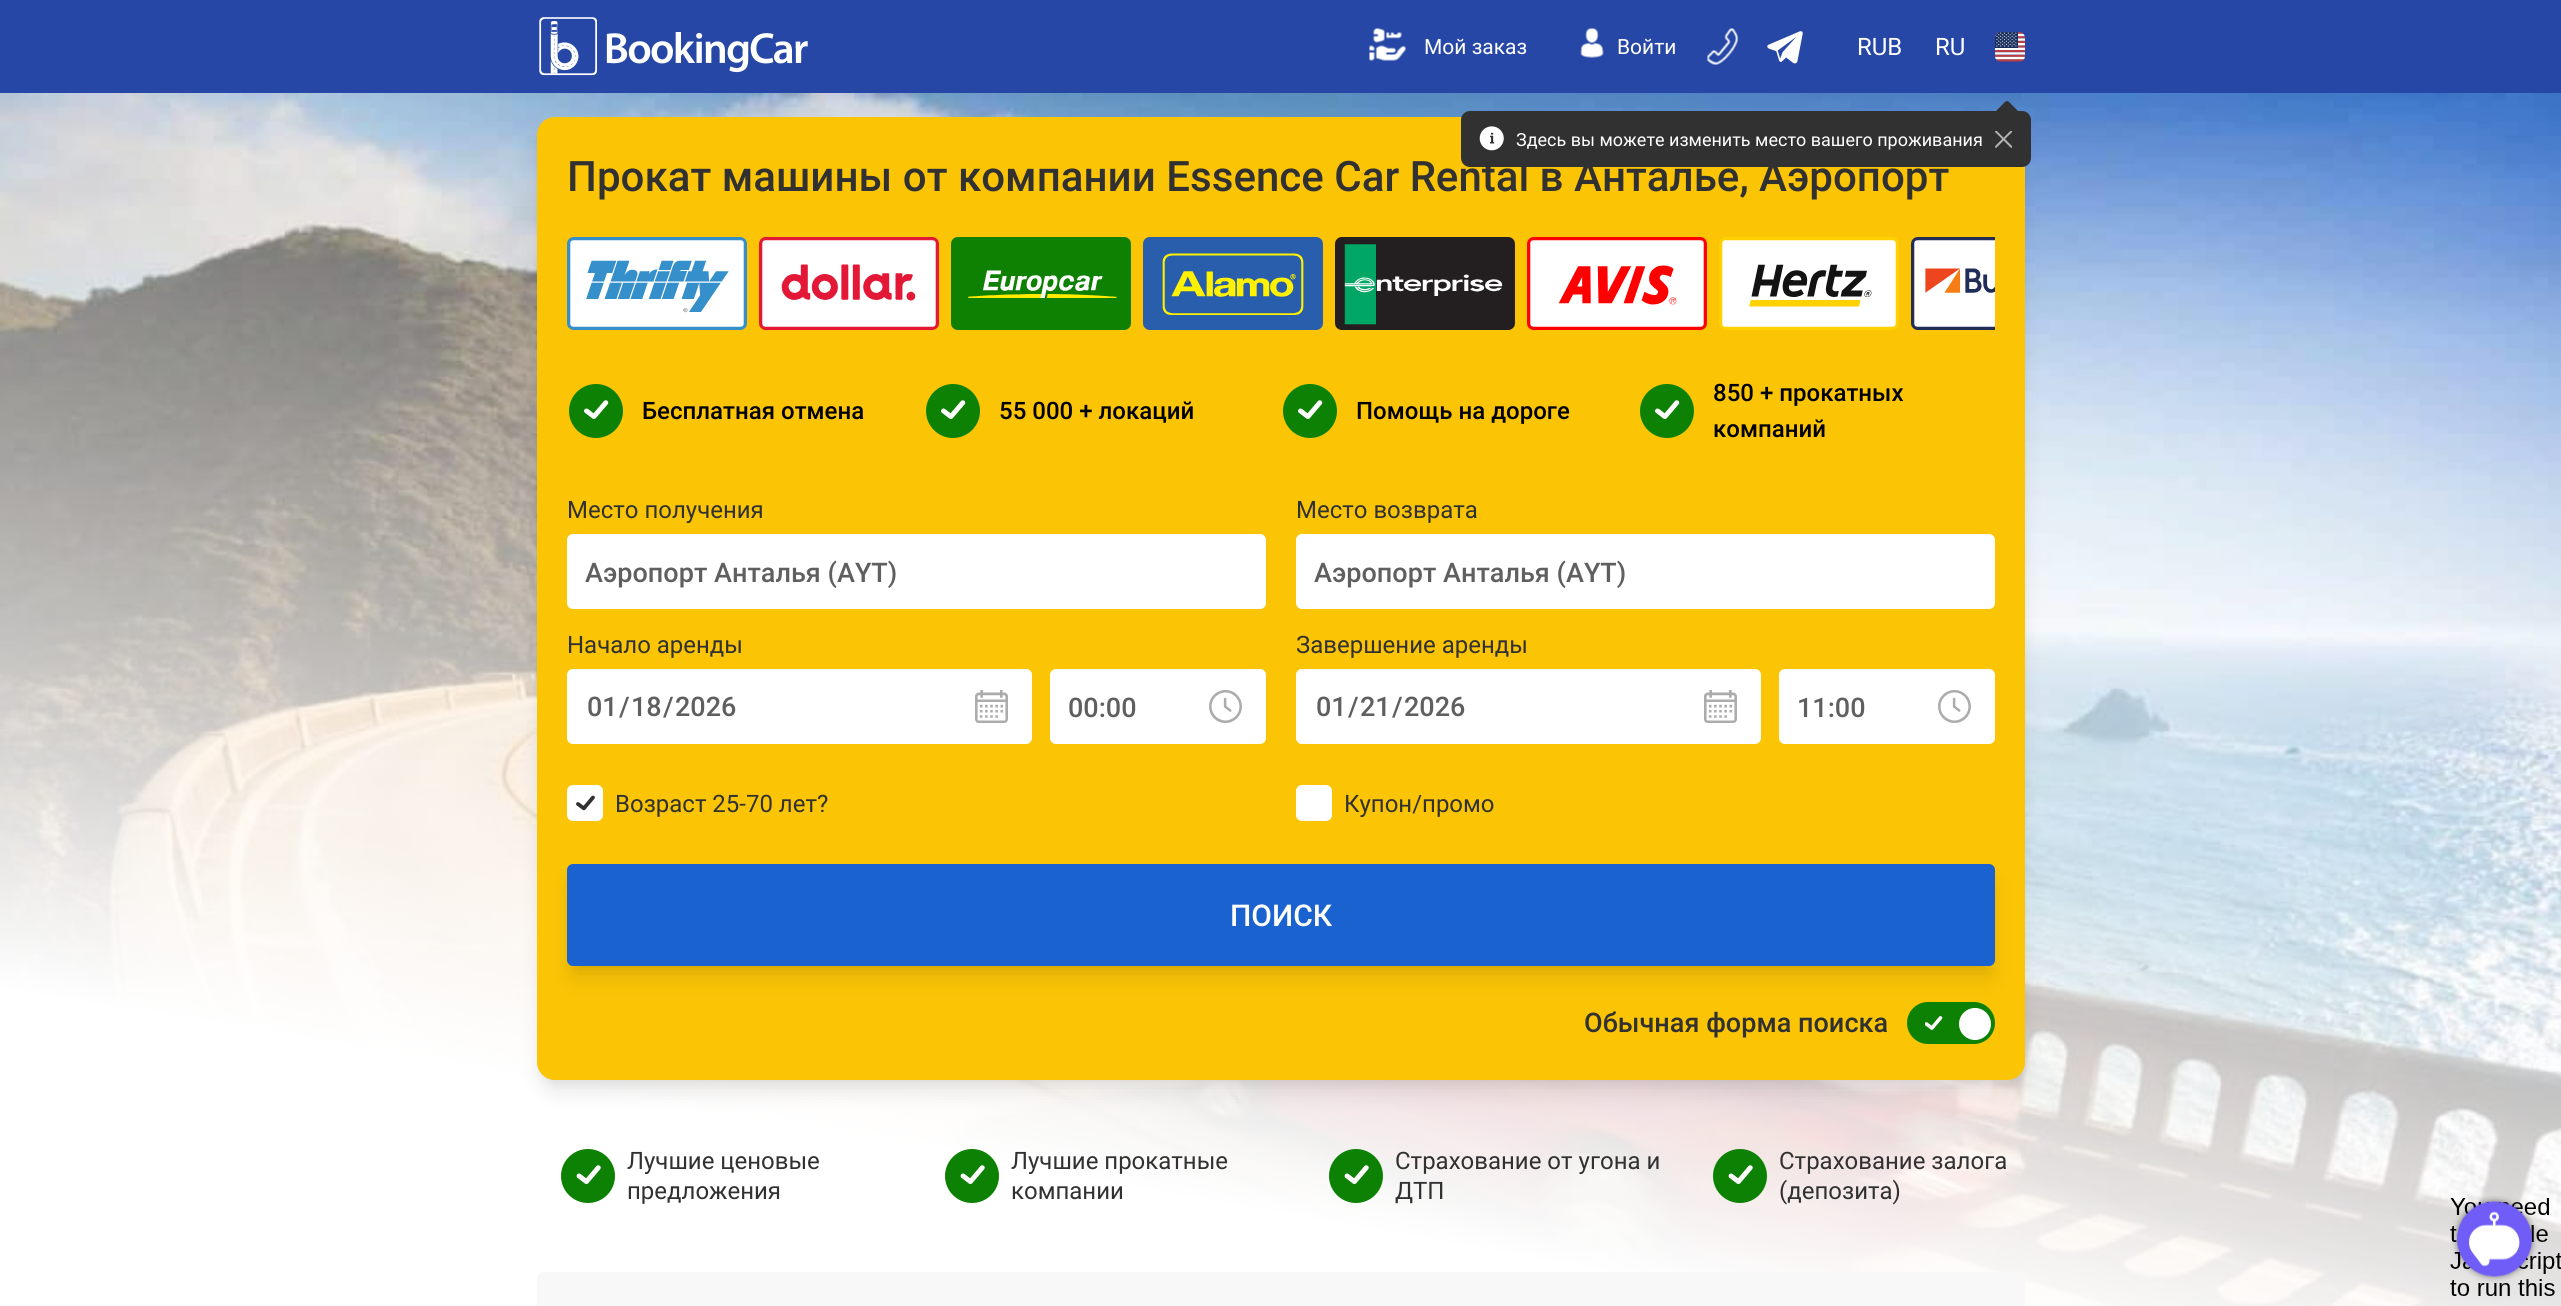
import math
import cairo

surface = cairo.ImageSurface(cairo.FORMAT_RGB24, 2561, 1306)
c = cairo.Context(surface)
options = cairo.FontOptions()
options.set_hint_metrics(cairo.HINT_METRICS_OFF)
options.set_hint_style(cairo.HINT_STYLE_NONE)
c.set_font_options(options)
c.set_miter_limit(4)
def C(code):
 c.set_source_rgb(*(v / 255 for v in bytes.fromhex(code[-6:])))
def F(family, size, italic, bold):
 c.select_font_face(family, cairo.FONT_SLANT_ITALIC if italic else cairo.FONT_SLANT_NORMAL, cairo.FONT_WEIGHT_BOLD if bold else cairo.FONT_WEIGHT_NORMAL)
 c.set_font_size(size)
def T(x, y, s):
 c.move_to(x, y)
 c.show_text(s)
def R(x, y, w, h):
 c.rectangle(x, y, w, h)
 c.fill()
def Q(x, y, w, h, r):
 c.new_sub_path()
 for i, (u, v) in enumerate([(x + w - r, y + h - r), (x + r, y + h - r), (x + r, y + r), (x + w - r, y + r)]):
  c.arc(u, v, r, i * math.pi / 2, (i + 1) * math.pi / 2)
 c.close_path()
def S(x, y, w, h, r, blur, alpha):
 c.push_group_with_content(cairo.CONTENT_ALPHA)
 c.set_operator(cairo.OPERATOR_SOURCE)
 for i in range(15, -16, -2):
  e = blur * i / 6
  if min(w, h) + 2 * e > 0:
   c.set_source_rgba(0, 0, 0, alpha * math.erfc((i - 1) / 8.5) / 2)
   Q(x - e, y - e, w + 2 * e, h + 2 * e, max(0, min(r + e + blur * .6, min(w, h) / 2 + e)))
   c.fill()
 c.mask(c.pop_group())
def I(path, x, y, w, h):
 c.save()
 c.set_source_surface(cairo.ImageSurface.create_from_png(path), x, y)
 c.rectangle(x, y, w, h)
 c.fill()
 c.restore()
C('ffffff')
c.paint()
I('1.png',0,93,2561,1213)
C('2647a5')
R(0,0,2561,93)
I('2.png',539,17,269,59)
I('3.png',1369,28,37,33)
F('Roboto',21,0,0)
C('ffffff')
T(1424,54,'Мой заказ')
I('4.png',1580,28,24,30)
T(1617,54,'Войти')
I('5.png',1707,28,32,37)
I('6.png',1767,31,36,33)
F('Roboto',24,0,0)
T(1857,55,'RUB')
T(1935,55,'RU')
I('7.png',1995,32,30,30)
C('000000')
S(540,126,1482,957,15,4.5,.05)
S(542,137,1479,954,14,11,.1)
C('fbc405')
Q(537,117,1488,963,18)
c.fill()
C('313131')
Q(1461,111,570,56,9)
c.fill()
c.new_path()
c.move_to(2007,101)
c.line_to(2008.5,101.5)
c.line_to(2021,114)
c.curve_to(2021.5,117.5,2020.5,121,2019,123.5)
c.curve_to(2010.5,135.5,1991.5,128.5,1993,114)
c.line_to(2005.5,101.5)
c.close_path()
c.fill()
I('8.png',1479,126,25,25)
F('Roboto',18,0,0)
C('ffffff')
T(1516,146,'Здесь вы можете изменить место вашего проживания')
I('9.png',1995,131,18,17)
F('Roboto Medium',42,0,0)
C('313131')
T(567,191,'Прокат машины от компании Essence Car Rental в Анталье, Аэропорт')
I('10.png',567,237,180,93)
I('11.png',759,237,180,93)
I('12.png',951,237,180,93)
I('13.png',1143,237,180,93)
I('14.png',1335,237,180,93)
I('15.png',1527,237,180,93)
I('16.png',1719,237,180,93)
I('17.png',1911,237,84,93)
C('0d8103')
c.arc(596,411,27,0,2 * math.pi)
c.fill()
I('18.png',584,400,25,19)
F('Roboto Medium',24,0,0)
C('000000')
T(642,419,'Бесплатная отмена')
C('0d8103')
c.new_path()
c.arc(953,411,27,0,2 * math.pi)
c.fill()
I('18.png',941,400,25,19)
C('000000')
T(999,419,'55 000 + локаций')
C('0d8103')
c.new_path()
c.arc(1310,411,27,0,2 * math.pi)
c.fill()
I('18.png',1298,400,25,19)
C('000000')
T(1356,419,'Помощь на дороге')
C('0d8103')
c.new_path()
c.arc(1667,411,27,0,2 * math.pi)
c.fill()
I('18.png',1655,400,25,19)
C('000000')
T(1713,401,'850 + прокатных')
T(1713,437,'компаний')
F('Roboto',24,0,0)
C('313131')
T(567,518,'Место получения')
C('ffffff')
Q(567,534,699,75,6)
c.fill()
F('Roboto Medium',27,0,0)
C('5f5f5f')
T(585,582,'Аэропорт Анталья (AYT)')
F('Roboto',24,0,0)
C('313131')
T(1296,518,'Место возврата')
C('ffffff')
Q(1296,534,699,75,6)
c.fill()
F('Roboto Medium',27,0,0)
C('5f5f5f')
T(1314,582,'Аэропорт Анталья (AYT)')
F('Roboto',24,0,0)
C('313131')
T(567,653,'Начало аренды')
C('ffffff')
Q(567,669,465,75,6)
c.fill()
I('19.png',975,690,33,33)
F('Roboto Medium',27,0,0)
C('5f5f5f')
T(587,716,'01')
T(619,716,'/')
T(631,716,'18')
T(663,716,'/')
T(675,716,'2026')
C('ffffff')
Q(1050,669,216,75,6)
c.fill()
I('20.png',1209,690,33,33)
C('5f5f5f')
T(1068,717,'00:00')
F('Roboto',24,0,0)
C('313131')
T(1296,653,'Завершение аренды')
C('ffffff')
Q(1296,669,465,75,6)
c.fill()
I('19.png',1704,690,33,33)
F('Roboto Medium',27,0,0)
C('5f5f5f')
T(1316,716,'01')
T(1348,716,'/')
T(1360,716,'21')
T(1392,716,'/')
T(1404,716,'2026')
C('ffffff')
Q(1779,669,216,75,6)
c.fill()
I('20.png',1938,690,33,33)
C('5f5f5f')
T(1797,717,'11:00')
C('ffffff')
Q(567,785,36,36,6)
c.fill()
I('21.png',576,795,19,16)
F('Roboto',24,0,0)
C('313131')
T(615,812,'Возраст 25-70 лет?')
C('ffffff')
Q(1296,785,36,36,6)
c.fill()
C('313131')
T(1344,812,'Купон/промо')
C('000000')
S(570,873,1422,96,3,4.5,.05)
S(572,884,1419,93,1.5,11,.1)
C('1a62cf')
Q(567,864,1428,102,6)
c.fill()
F('Roboto Medium',30,0,0)
C('ffffff')
T(1230,926,'ПОИСК')
F('Roboto Medium',27,0,0)
C('313131')
T(1584,1032,'Обычная форма поиска')
C('0d8103')
Q(1907,1002,88,42,21)
c.fill()
I('22.png',1925,1016,18,14)
C('ffffff')
c.arc(1975,1024,16,0,2 * math.pi)
c.fill()
C('0d8103')
c.arc(588,1176,27,0,2 * math.pi)
c.fill()
I('23.png',576,1165,25,19)
F('Roboto',24,0,0)
C('313131')
T(627,1169,'Лучшие ценовые')
T(627,1199,'предложения')
C('0d8103')
c.new_path()
c.arc(972,1176,27,0,2 * math.pi)
c.fill()
I('23.png',960,1165,25,19)
C('313131')
T(1011,1169,'Лучшие прокатные')
T(1011,1199,'компании')
C('0d8103')
c.new_path()
c.arc(1356,1176,27,0,2 * math.pi)
c.fill()
I('23.png',1344,1165,25,19)
C('313131')
T(1395,1169,'Страхование от угона и')
T(1395,1199,'ДТП')
C('0d8103')
c.new_path()
c.arc(1740,1176,27,0,2 * math.pi)
c.fill()
I('23.png',1728,1165,25,19)
C('313131')
T(1779,1169,'Страхование залога')
T(1779,1199,'(депозита)')
C('f8f8f8')
Q(537,1272,1488,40,6)
c.fill()
I('24.png',2450,1196,111,100)
surface.write_to_png('o.png')
